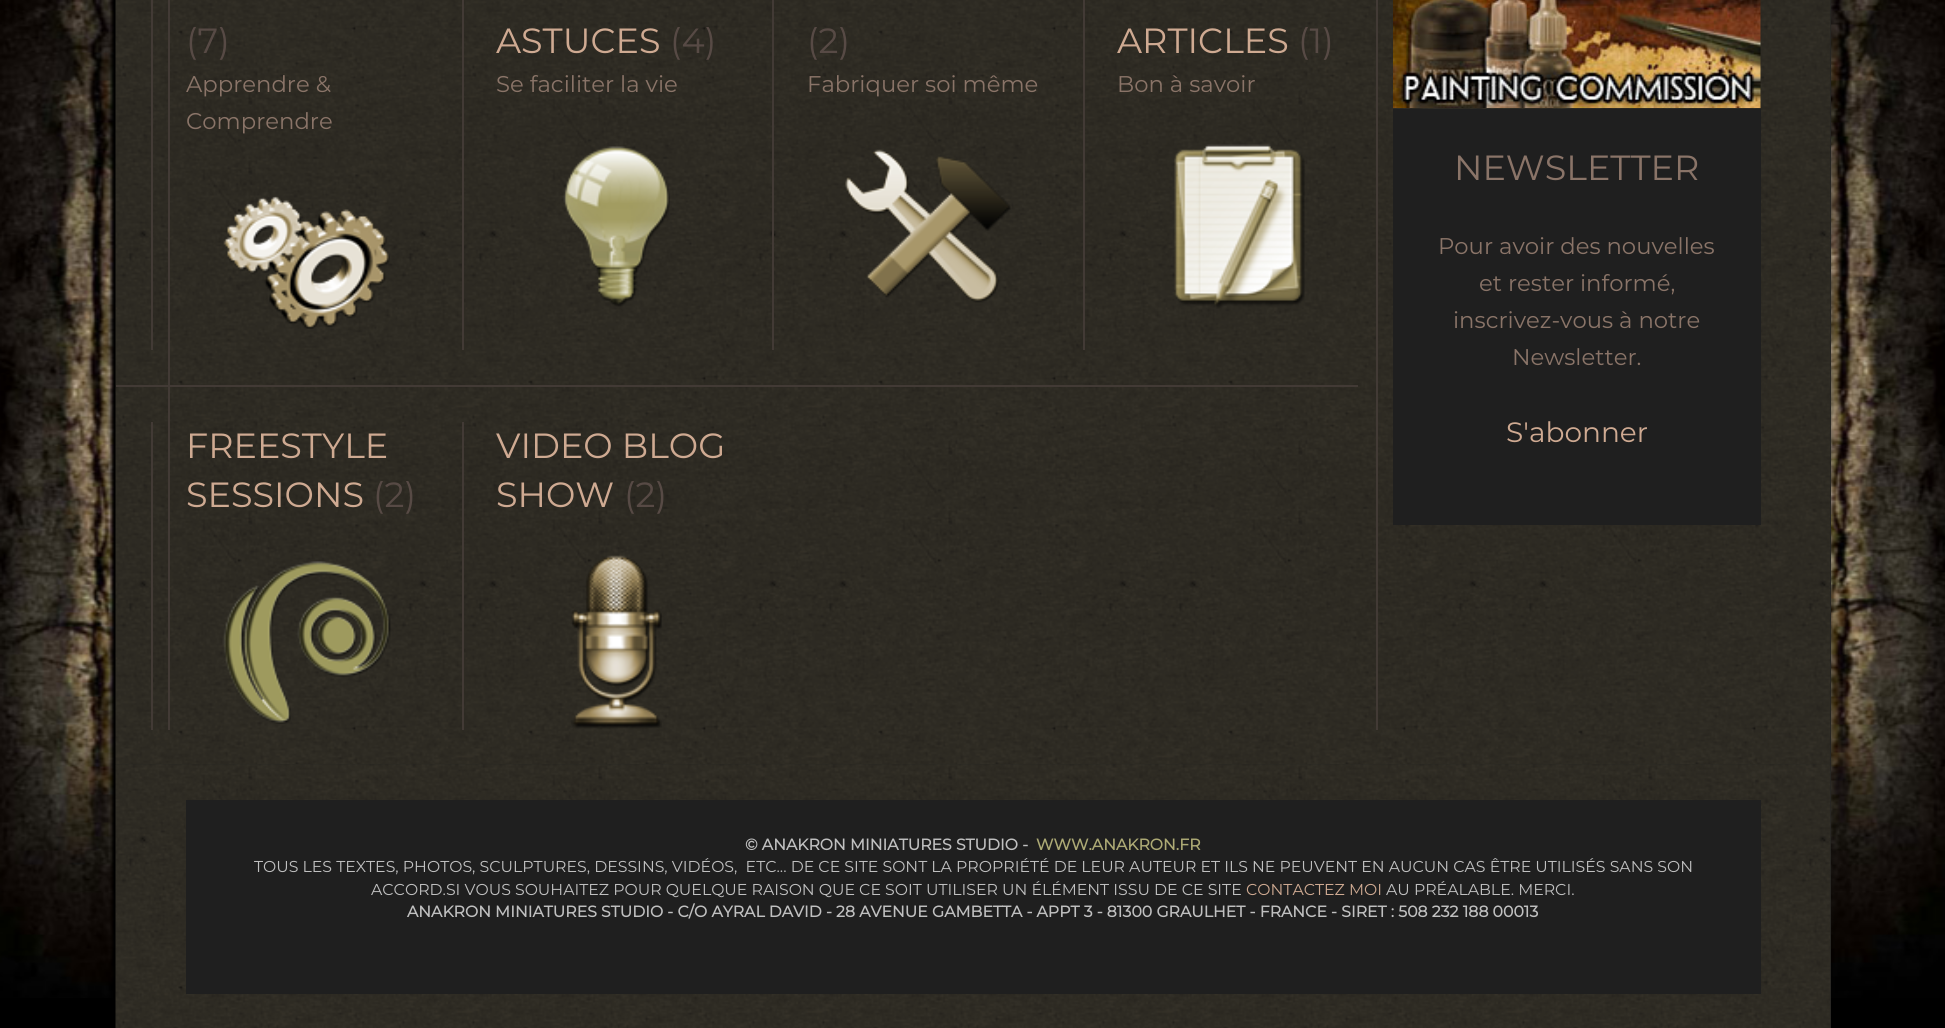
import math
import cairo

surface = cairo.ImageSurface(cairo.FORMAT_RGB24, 1945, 1028)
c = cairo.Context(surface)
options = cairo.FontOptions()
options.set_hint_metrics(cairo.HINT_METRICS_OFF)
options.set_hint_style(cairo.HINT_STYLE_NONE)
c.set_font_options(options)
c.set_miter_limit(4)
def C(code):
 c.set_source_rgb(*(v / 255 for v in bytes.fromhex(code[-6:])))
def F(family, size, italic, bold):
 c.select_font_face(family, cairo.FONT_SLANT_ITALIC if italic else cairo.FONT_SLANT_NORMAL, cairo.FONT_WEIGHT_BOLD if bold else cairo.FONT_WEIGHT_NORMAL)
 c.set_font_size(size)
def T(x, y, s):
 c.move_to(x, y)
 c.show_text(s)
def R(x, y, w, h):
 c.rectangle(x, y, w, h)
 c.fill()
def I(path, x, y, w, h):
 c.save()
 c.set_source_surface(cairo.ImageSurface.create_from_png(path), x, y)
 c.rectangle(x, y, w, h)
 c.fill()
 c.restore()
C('000000')
c.paint()
I('1.png',0,0,1945,998)
C('232222')
R(116,0,1715,1028)
I('2.png',115,0,1716,765)
C('423a35')
R(116,385,1242,2)
R(168,0,2,730)
R(151,0,2,350)
F('Montserrat',35,0,0)
C('574a45')
T(186,53,'(7)')
F('Montserrat',22.75,0,0)
C('8a7468')
T(186,92,'Apprendre &')
T(186,129,'Comprendre')
I('3.png',223,196,167,133)
C('423a35')
R(462,0,2,350)
F('Montserrat',35,0,0)
C('cfaa92')
T(496,53,'ASTUCES')
C('574a45')
T(670,53,'(4)')
F('Montserrat',22.75,0,0)
C('8a7468')
T(496,92,'Se faciliter la vie')
I('4.png',563,146,107,161)
C('423a35')
R(772,0,2,350)
F('Montserrat',35,0,0)
C('574a45')
T(807,53,'(2)')
F('Montserrat',22.75,0,0)
C('8a7468')
T(807,92,'Fabriquer soi même')
I('5.png',845,149,166,154)
C('423a35')
R(1083,0,2,350)
F('Montserrat',35,0,0)
C('cfaa92')
T(1117,53,'ARTICLES')
C('574a45')
T(1298,53,'(1)')
F('Montserrat',22.75,0,0)
C('8a7468')
T(1117,92,'Bon à savoir')
I('6.png',1174,144,131,165)
C('423a35')
R(151,422,2,308)
F('Montserrat',35,0,0)
C('cfaa92')
T(186,458,'FREESTYLE')
T(186,507,'SESSIONS')
C('574a45')
T(373,507,'(2)')
I('7.png',222,561,169,163)
C('423a35')
R(462,422,2,308)
C('cfaa92')
T(496,458,'VIDEO BLOG')
T(496,507,'SHOW')
C('574a45')
T(624,507,'(2)')
I('8.png',571,555,91,174)
C('423a35')
R(1376,0,2,730)
I('9.png',1393,0,368,108)
C('1f1f1f')
R(1393,109,368,416)
C('8a7468')
T(1454,180,'NEWSLETTER')
F('Montserrat',22.75,0,0)
T(1438,254,'Pour avoir des nouvelles')
T(1479,291,'et rester informé,')
T(1453,328,'inscrivez-vous à notre')
T(1512,365,'Newsletter.')
F('Montserrat',28,0,0)
C('cfaa92')
T(1506,442,'S\'abonner')
I('10.png',115,764,1716,264)
C('1f1f1f')
R(186,800,1575,194)
F('Montserrat',15.75,0,1)
C('c0c0c0')
T(745,850,'© ANAKRON MINIATURES STUDIO -')
C('adaa75')
T(1036,850,'WWW.ANAKRON.FR')
F('Montserrat',15.75,0,0)
C('c0c0c0')
T(254,872,'TOUS LES TEXTES, PHOTOS, SCULPTURES, DESSINS, VIDÉOS,  ETC... DE CE SITE SONT LA PROPRIÉTÉ DE LEUR AUTEUR ET ILS NE PEUVENT EN AUCUN CAS ÊTRE UTILISÉS SANS SON')
T(371,895,'ACCORD.SI VOUS SOUHAITEZ POUR QUELQUE RAISON QUE CE SOIT UTILISER UN ÉLÉMENT ISSU DE CE SITE')
C('cfaa92')
T(1246,895,'CONTACTEZ MOI')
C('c0c0c0')
T(1386,895,'AU PRÉALABLE. MERCI.')
F('Montserrat',15.75,0,1)
T(407,917,'ANAKRON MINIATURES STUDIO - C/O AYRAL DAVID - 28 AVENUE GAMBETTA - APPT 3 - 81300 GRAULHET - FRANCE - SIRET : 508 232 188 00013')
surface.write_to_png('o.png')
